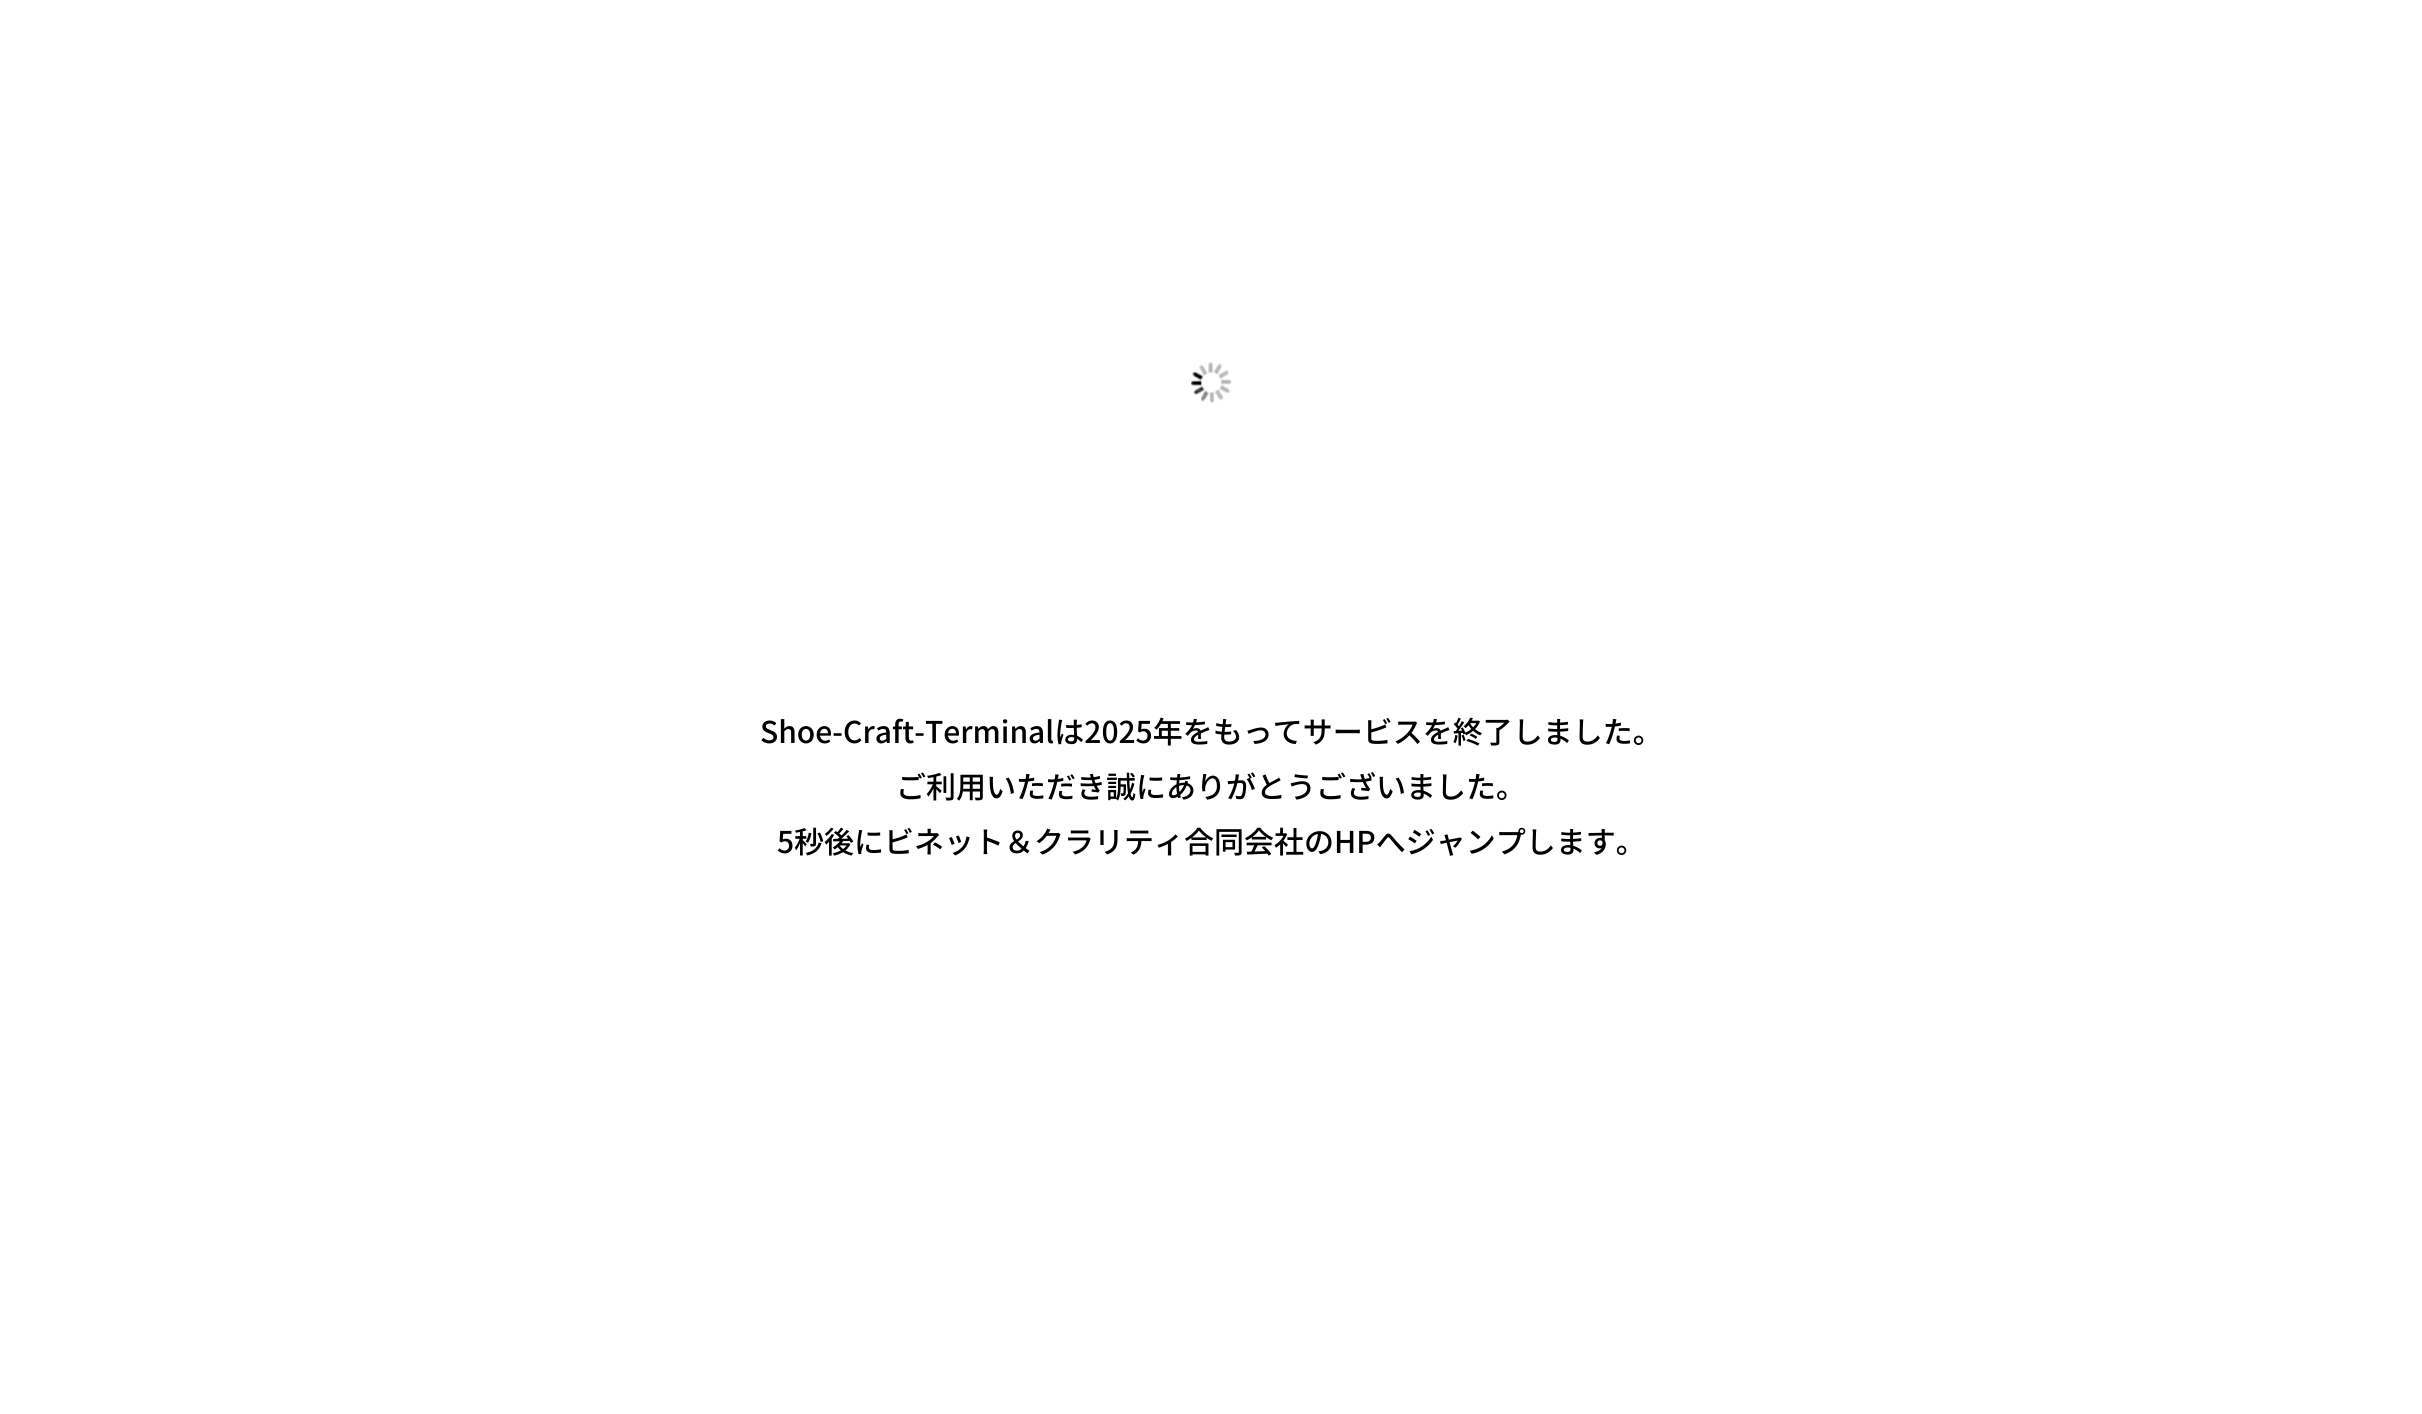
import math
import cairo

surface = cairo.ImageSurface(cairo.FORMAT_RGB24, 2422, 1414)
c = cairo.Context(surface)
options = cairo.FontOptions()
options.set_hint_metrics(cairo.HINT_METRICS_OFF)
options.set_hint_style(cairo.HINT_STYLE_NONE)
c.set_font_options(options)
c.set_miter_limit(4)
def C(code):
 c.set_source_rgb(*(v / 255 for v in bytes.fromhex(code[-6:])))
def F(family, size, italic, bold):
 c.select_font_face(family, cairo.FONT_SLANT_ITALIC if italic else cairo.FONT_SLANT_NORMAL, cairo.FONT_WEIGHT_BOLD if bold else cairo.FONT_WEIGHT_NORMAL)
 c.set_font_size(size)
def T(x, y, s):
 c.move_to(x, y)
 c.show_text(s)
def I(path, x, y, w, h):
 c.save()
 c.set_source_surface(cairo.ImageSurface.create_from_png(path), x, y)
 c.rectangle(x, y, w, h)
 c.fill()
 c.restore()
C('ffffff')
c.paint()
I('1.png',1191,362,41,41)
F('Noto Sans JP Medium',30,0,0)
C('000000')
T(760,743,'Shoe-Craft-Terminalは2025年をもってサービスを終了しました。')
T(896,798,'ご利用いただき誠にありがとうございました。')
T(777,853,'5秒後にビネット＆クラリティ合同会社のHPへジャンプします。')
surface.write_to_png('o.png')
